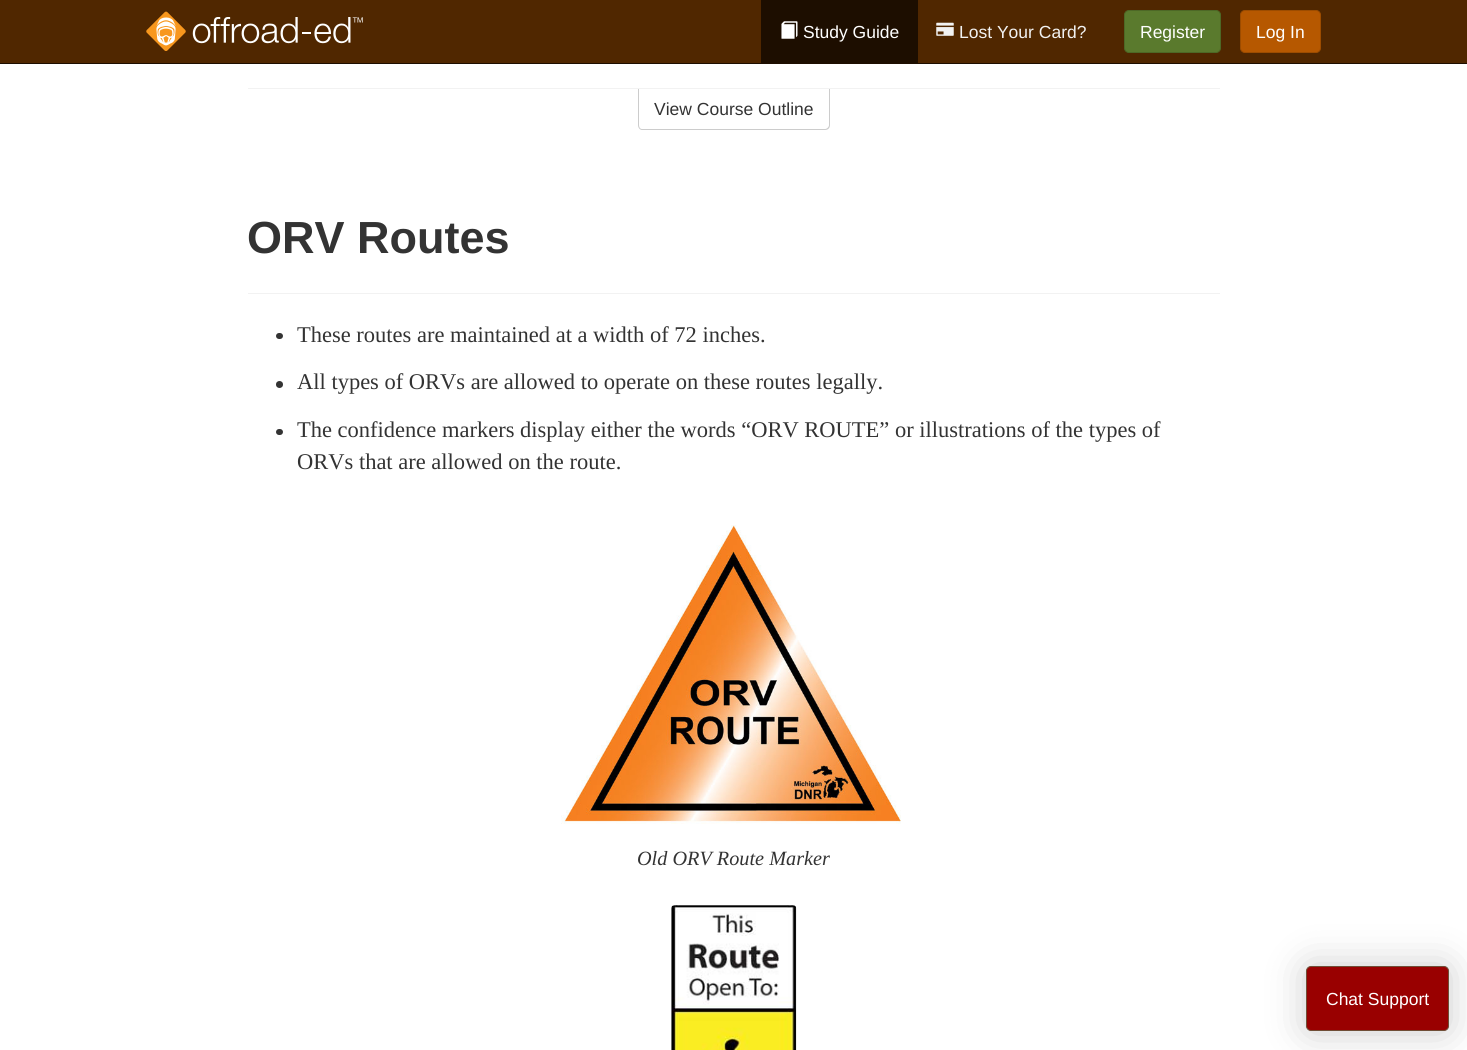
import math
import cairo

surface = cairo.ImageSurface(cairo.FORMAT_RGB24, 1467, 1050)
c = cairo.Context(surface)
options = cairo.FontOptions()
options.set_hint_metrics(cairo.HINT_METRICS_OFF)
options.set_hint_style(cairo.HINT_STYLE_NONE)
c.set_font_options(options)
c.set_miter_limit(4)
def C(code):
 c.set_source_rgb(*(v / 255 for v in bytes.fromhex(code[-6:])))
def F(family, size, italic, bold):
 c.select_font_face(family, cairo.FONT_SLANT_ITALIC if italic else cairo.FONT_SLANT_NORMAL, cairo.FONT_WEIGHT_BOLD if bold else cairo.FONT_WEIGHT_NORMAL)
 c.set_font_size(size)
def T(x, y, s):
 c.move_to(x, y)
 c.show_text(s)
def R(x, y, w, h):
 c.rectangle(x, y, w, h)
 c.fill()
def Q(x, y, w, h, r):
 c.new_sub_path()
 for i, (u, v) in enumerate([(x + w - r, y + h - r), (x + r, y + h - r), (x + r, y + r), (x + w - r, y + r)]):
  c.arc(u, v, r, i * math.pi / 2, (i + 1) * math.pi / 2)
 c.close_path()
def S(x, y, w, h, r, blur, alpha):
 c.push_group_with_content(cairo.CONTENT_ALPHA)
 c.set_operator(cairo.OPERATOR_SOURCE)
 for i in range(15, -16, -2):
  e = blur * i / 6
  if min(w, h) + 2 * e > 0:
   c.set_source_rgba(0, 0, 0, alpha * math.erfc((i - 1) / 8.5) / 2)
   Q(x - e, y - e, w + 2 * e, h + 2 * e, max(0, min(r + e + blur * .6, min(w, h) / 2 + e)))
   c.fill()
 c.mask(c.pop_group())
def I(path, x, y, w, h):
 c.save()
 c.set_source_surface(cairo.ImageSurface.create_from_png(path), x, y)
 c.rectangle(x, y, w, h)
 c.fill()
 c.restore()
C('ffffff')
c.paint()
C('502700')
R(0,0,1467,63)
C('1d0e00')
R(0,63,1467,1)
I('1.png',146,11,217,40)
R(761,0,157,63)
I('2.png',781,21,17,18)
F('Liberation Sans',17.5,0,0)
C('ffffff')
T(803,38,'Study Guide')
I('3.png',936,22,18,14)
C('f2f2f2')
T(959,38,'Lost Your Card?')
C('5a7a2d')
Q(1124.5,10.5,96,42,4.5)
c.fill_preserve()
C('4d6826')
c.set_line_width(1)
c.stroke()
C('ffffff')
T(1140,38,'Register')
C('b65800')
Q(1240.5,10.5,80,42,4.5)
c.fill_preserve()
C('9c4c00')
c.stroke()
C('ffffff')
T(1256,38,'Log In')
C('f2f2f2')
R(248,88,972,1)
C('cccccc')
c.set_fill_rule(cairo.FILL_RULE_EVEN_ODD)
c.new_path()
c.move_to(638,89)
c.line_to(830,89)
c.line_to(830,125)
c.curve_to(830,128,828,130,825,130)
c.line_to(642,130)
c.curve_to(640,130,638,128,638,125)
c.close_path()
c.move_to(639,89)
c.line_to(829,89)
c.line_to(829,125)
c.curve_to(829,127,827,129,825,129)
c.line_to(642,129)
c.curve_to(640,129,639,127,639,125)
c.close_path()
c.fill()
C('333333')
T(654,115,'View Course Outline')
C('f2f2f2')
R(248,293,972,1)
F('Liberation Sans',45,0,1)
C('333333')
T(247,253,'ORV Routes')
Q(276,333,7,6,3)
c.fill()
F('Liberation Serif',22.5,0,0)
T(297,342,'These routes are maintained at a width of 72 inches.')
c.new_path()
c.arc(279.5,384.5,3.5,0,2 * math.pi)
c.fill()
T(297,389,'All types of ORVs are allowed to operate on these routes legally.')
Q(276,429,7,6,3)
c.fill()
T(297,437,'The confidence markers display either the words “ORV ROUTE” or illustrations of the types of')
T(297,469,'ORVs that are allowed on the route.')
I('4.png',561,525,340,299)
F('Liberation Serif',20.25,1,0)
T(637,865,'Old ORV Route Marker')
I('5.png',671,905,126,145)
C('000000')
S(1305,965,145,68,6,19,.2)
C('990000')
Q(1306.5,966.5,142,64,4.5)
c.fill_preserve()
C('6f4e37')
c.stroke()
F('Liberation Sans',17.5,0,0)
C('ffffff')
T(1326,1005,'Chat Support')
surface.write_to_png('o.png')
